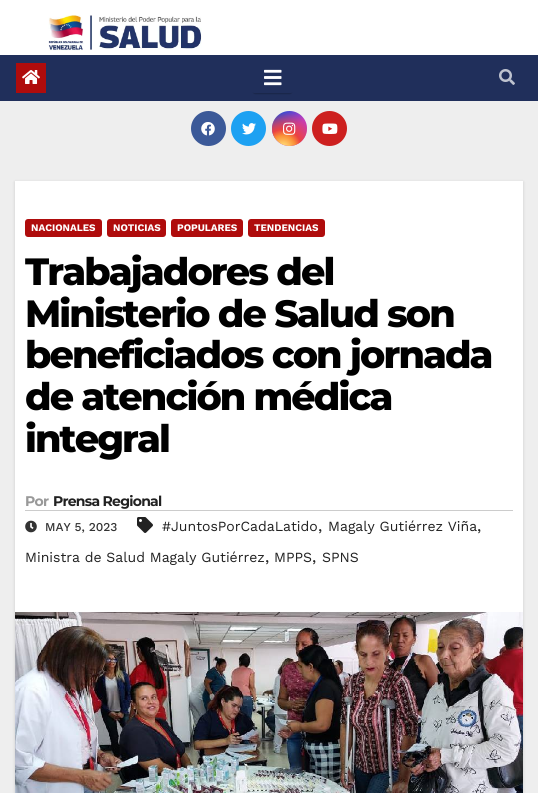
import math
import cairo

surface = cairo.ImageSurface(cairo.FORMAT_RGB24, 538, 793)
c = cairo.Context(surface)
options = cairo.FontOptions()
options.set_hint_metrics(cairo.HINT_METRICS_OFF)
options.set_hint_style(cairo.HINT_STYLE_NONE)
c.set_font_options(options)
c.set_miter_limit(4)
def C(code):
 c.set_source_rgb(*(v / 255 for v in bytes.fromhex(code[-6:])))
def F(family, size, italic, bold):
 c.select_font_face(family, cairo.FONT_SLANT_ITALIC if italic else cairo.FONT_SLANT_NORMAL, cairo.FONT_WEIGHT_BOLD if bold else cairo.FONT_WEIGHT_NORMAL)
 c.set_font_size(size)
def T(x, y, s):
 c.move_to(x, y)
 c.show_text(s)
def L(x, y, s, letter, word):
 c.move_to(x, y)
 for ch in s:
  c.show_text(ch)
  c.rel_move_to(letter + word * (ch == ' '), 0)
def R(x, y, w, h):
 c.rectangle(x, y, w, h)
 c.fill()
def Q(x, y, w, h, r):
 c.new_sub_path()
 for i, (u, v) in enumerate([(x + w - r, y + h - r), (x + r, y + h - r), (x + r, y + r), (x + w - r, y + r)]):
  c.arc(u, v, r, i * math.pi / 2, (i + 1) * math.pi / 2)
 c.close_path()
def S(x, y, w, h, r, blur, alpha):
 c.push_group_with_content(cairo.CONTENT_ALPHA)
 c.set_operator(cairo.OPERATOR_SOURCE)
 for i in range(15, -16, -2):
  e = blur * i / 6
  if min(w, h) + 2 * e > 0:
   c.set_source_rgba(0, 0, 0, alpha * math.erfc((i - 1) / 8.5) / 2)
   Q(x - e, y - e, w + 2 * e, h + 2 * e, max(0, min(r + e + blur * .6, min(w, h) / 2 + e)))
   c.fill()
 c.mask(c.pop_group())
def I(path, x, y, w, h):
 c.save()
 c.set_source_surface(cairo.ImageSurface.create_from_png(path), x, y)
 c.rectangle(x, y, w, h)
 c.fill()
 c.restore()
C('eeeeee')
c.paint()
C('ffffff')
R(0,0,538,55)
I('1.png',48,15,154,36)
C('202f5b')
R(0,55,538,46)
C('af0c0c')
R(16,63,30,30)
I('2.png',22,70,18,14)
c.save()
c.set_fill_rule(cairo.FILL_RULE_EVEN_ODD)
c.new_path()
c.move_to(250,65)
c.line_to(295,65)
c.line_to(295,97)
c.line_to(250,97)
c.close_path()
c.move_to(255,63)
c.line_to(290,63)
c.curve_to(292,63,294,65,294,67)
c.line_to(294,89)
c.curve_to(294,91,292,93,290,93)
c.line_to(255,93)
c.curve_to(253,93,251,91,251,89)
c.line_to(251,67)
c.curve_to(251,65,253,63,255,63)
c.close_path()
c.clip()
C('000000')
S(253,68,39,26,2,.5,.2)
c.restore()
I('3.png',264,69,18,17)
I('4.png',499,69,16,16)
C('3b5998')
c.arc(208.5,128.5,17.5,0,2 * math.pi)
c.fill()
I('5.png',201,122,14,14)
C('1da1f2')
c.arc(248.5,128.5,17.5,0,2 * math.pi)
c.fill()
I('6.png',242,123,14,12)
gradient = cairo.LinearGradient(272,111,307,146)
gradient.add_color_stop_rgba(.12,0.137,0.294,0.843,1)
gradient.add_color_stop_rgba(.58,0.765,0.235,0.745,1)
c.set_source(gradient)
c.arc(289.5,128.5,17.5,0,2 * math.pi)
c.fill()
gradient = cairo.RadialGradient(283,148,0,283,148,44)
gradient.add_color_stop_rgba(0,1,0.882,0.49,1)
gradient.add_color_stop_rgba(.1,1,0.804,0.412,1)
gradient.add_color_stop_rgba(.28,0.98,0.569,0.216,1)
gradient.add_color_stop_rgba(.42,0.922,0.255,0.255,1)
gradient.add_color_stop_rgba(.82,0.922,0.255,0.255,0)
c.set_source(gradient)
c.arc(289.5,128.5,17.5,0,2 * math.pi)
c.fill()
I('7.png',283,122,13,13)
C('cd201f')
c.arc(329.5,128.5,17.5,0,2 * math.pi)
c.fill()
I('8.png',322,123,16,11)
C('000000')
S(15,182,508,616,0,1.5,.15)
C('ffffff')
R(15,181,508,431)
C('af0c0c')
Q(25,219,77,18,3)
c.fill()
F('Work Sans',10,0,1)
C('ffffff')
T(31,231,'NACIONALES')
C('af0c0c')
Q(107,219,59,18,3)
c.fill()
C('ffffff')
T(113,231,'NOTICIAS')
C('af0c0c')
Q(171,219,72,18,3)
c.fill()
C('ffffff')
T(177,231,'POPULARES')
C('af0c0c')
Q(248,219,77,18,3)
c.fill()
C('ffffff')
T(254,231,'TENDENCIAS')
F('Montserrat ExtraBold',38,0,0)
C('000000')
L(25,285,'Trabajadores del',-1.9,0)
L(25,327,'Ministerio de Salud son',-1.9,0)
L(25,368,'beneficiados con jornada',-1.9,0)
L(25,410,'de atención médica',-1.9,0)
L(25,452,'integral',-1.9,0)
C('cccccc')
R(25,510,488,1)
F('Montserrat',14,0,1)
C('999999')
L(25,506,'Por',-.75,0)
C('212121')
L(53,506,'Prensa Regional',-.75,0)
I('9.png',137,517,16,16)
F('Work Sans',14,0,0)
T(162,531,'#JuntosPorCadaLatido')
F('Work Sans',16,0,0)
T(318,531,',')
F('Work Sans',14,0,0)
T(328,531,'Magaly Gutiérrez Viña')
F('Work Sans',16,0,0)
T(477,531,',')
F('Work Sans',14,0,0)
T(25,562,'Ministra de Salud Magaly Gutiérrez')
F('Work Sans',16,0,0)
T(265,562,',')
F('Work Sans',14,0,0)
T(274,562,'MPPS')
F('Work Sans',16,0,0)
T(312,562,',')
F('Work Sans',14,0,0)
T(322,562,'SPNS')
I('10.png',25,520,12,13)
F('Work Sans Medium',12,0,0)
C('333333')
T(45,531,'MAY 5, 2023')
I('11.png',15,612,508,181)
surface.write_to_png('o.png')
